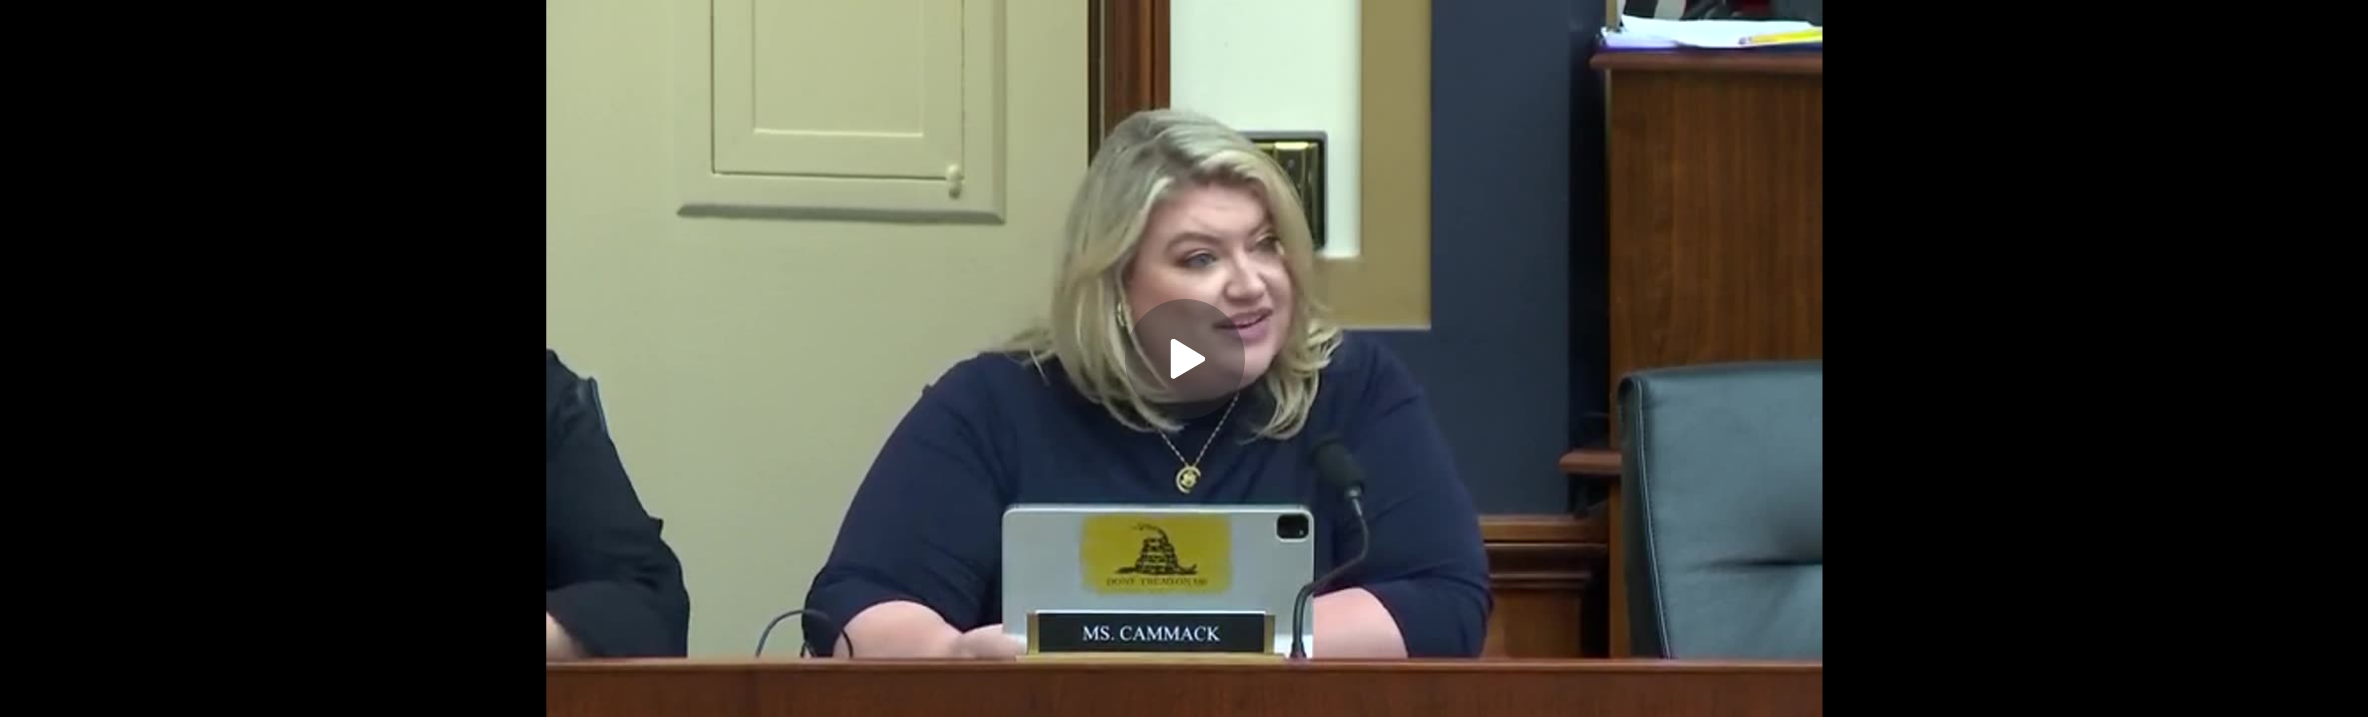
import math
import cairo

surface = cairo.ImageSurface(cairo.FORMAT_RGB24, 2368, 717)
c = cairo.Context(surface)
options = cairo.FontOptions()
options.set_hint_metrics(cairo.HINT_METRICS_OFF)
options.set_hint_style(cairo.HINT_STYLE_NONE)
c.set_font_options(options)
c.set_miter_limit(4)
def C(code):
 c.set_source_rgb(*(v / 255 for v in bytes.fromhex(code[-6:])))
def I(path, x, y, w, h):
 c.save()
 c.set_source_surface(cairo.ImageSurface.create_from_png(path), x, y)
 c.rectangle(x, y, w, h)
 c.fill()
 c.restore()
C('000000')
c.paint()
I('1.png',546,0,1277,717)
c.set_source_rgba(0.188,0.188,0.188,0.4)
c.arc(1185,359,60,0,2 * math.pi)
c.fill()
C('ffffff')
c.new_path()
c.move_to(1202.5,359)
c.line_to(1173.5,341.5)
c.line_to(1173.5,376)
c.close_path()
c.fill()
c.save()
c.rectangle(1165,339,40,40)
c.clip()
c.new_path()
c.move_to(1202.5,359)
c.line_to(1173.5,341.5)
c.line_to(1173.5,376)
c.close_path()
c.set_line_width(5.5)
c.set_line_join(cairo.LINE_JOIN_ROUND)
c.stroke()
c.restore()
surface.write_to_png('o.png')
